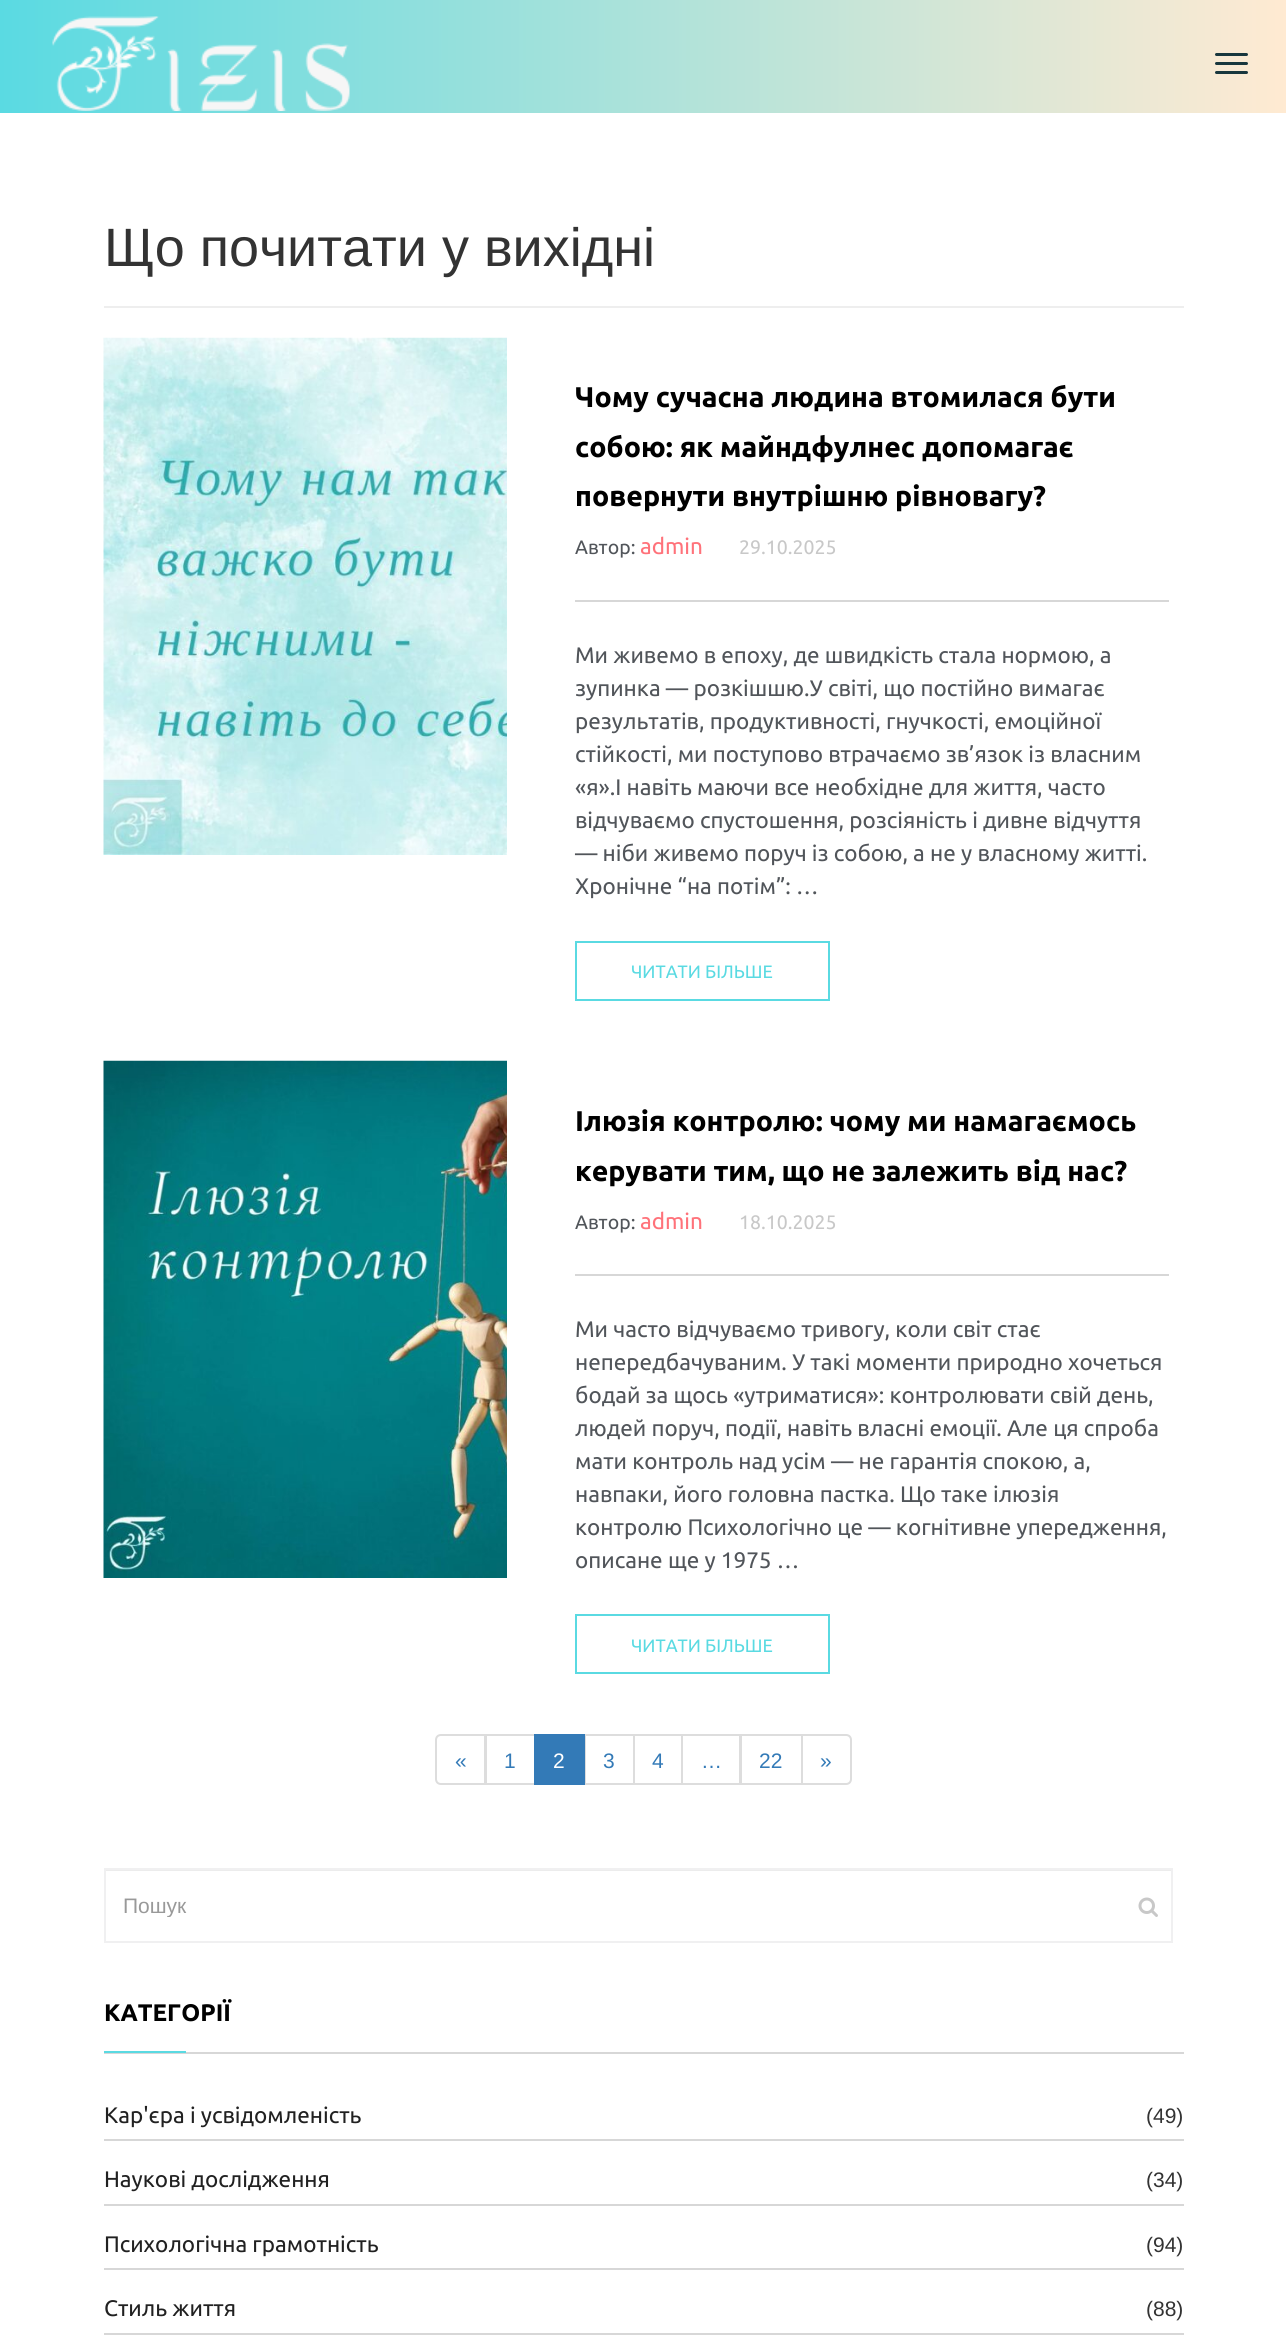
import math
import cairo

surface = cairo.ImageSurface(cairo.FORMAT_RGB24, 1286, 2348)
c = cairo.Context(surface)
options = cairo.FontOptions()
options.set_hint_metrics(cairo.HINT_METRICS_OFF)
options.set_hint_style(cairo.HINT_STYLE_NONE)
c.set_font_options(options)
c.set_miter_limit(4)
def C(code):
 c.set_source_rgb(*(v / 255 for v in bytes.fromhex(code[-6:])))
def F(family, size, italic, bold):
 c.select_font_face(family, cairo.FONT_SLANT_ITALIC if italic else cairo.FONT_SLANT_NORMAL, cairo.FONT_WEIGHT_BOLD if bold else cairo.FONT_WEIGHT_NORMAL)
 c.set_font_size(size)
def T(x, y, s):
 c.move_to(x, y)
 c.show_text(s)
def R(x, y, w, h):
 c.rectangle(x, y, w, h)
 c.fill()
def Q(x, y, w, h, r):
 c.new_sub_path()
 for i, (u, v) in enumerate([(x + w - r, y + h - r), (x + r, y + h - r), (x + r, y + r), (x + w - r, y + r)]):
  c.arc(u, v, r, i * math.pi / 2, (i + 1) * math.pi / 2)
 c.close_path()
def I(path, x, y, w, h):
 c.save()
 c.set_source_surface(cairo.ImageSurface.create_from_png(path), x, y)
 c.rectangle(x, y, w, h)
 c.fill()
 c.restore()
C('ffffff')
c.paint()
gradient = cairo.LinearGradient(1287,56,0,56)
gradient.add_color_stop_rgba(0,1,0.918,0.824,1)
gradient.add_color_stop_rgba(1,0.353,0.855,0.886,1)
c.set_source(gradient)
R(0,0,1286,113)
I('1.png',52,16,298,95)
C('18373d')
Q(1215,53,33,3,1.5)
c.fill()
Q(1215,62,33,3,1.5)
c.fill()
Q(1215,71,33,3,1.5)
c.fill()
C('eeeeee')
R(104,306,1080,2)
F('Liberation Sans',54,0,0)
C('333333')
T(104,266,'Що почитати у вихідні')
I('2.png',103,337,404,518)
F('Ubuntu',28.5,0,1)
C('000000')
T(575,407,'Чому сучасна людина втомилася бути')
T(575,457,'собою: як майндфулнес допомагає')
T(575,506,'повернути внутрішню рівновагу?')
F('Ubuntu',19.5,0,0)
C('51555a')
T(575,554,'Автор:')
F('Ubuntu',22.5,0,0)
C('ff727a')
T(640,554,'admin')
F('Ubuntu',19.5,0,0)
C('c8c8c8')
T(739,554,'29.10.2025')
C('d7d7d7')
R(575,600,594,2)
F('Ubuntu',22.5,0,0)
C('51555a')
T(575,663,'Ми живемо в епоху, де швидкість стала нормою, а')
T(575,696,'зупинка — розкішшю.У світі, що постійно вимагає')
T(575,729,'результатів, продуктивності, гнучкості, емоційної')
T(575,762,'стійкості, ми поступово втрачаємо зв’язок із власним')
T(575,795,'«я».І навіть маючи все необхідне для життя, часто')
T(575,828,'відчуваємо спустошення, розсіяність і дивне відчуття')
T(575,861,'— ніби живемо поруч із собою, а не у власному житті.')
T(575,894,'Хронічне “на потім”: …')
c.rectangle(576,942,253,58)
C('5adae2')
c.stroke()
F('Ubuntu',18,0,0)
T(631,978,'ЧИТАТИ БІЛЬШЕ')
I('3.png',103,1060,404,518)
F('Ubuntu',28.5,0,1)
C('000000')
T(575,1131,'Ілюзія контролю: чому ми намагаємось')
T(575,1181,'керувати тим, що не залежить від нас?')
F('Ubuntu',19.5,0,0)
C('51555a')
T(575,1229,'Автор:')
F('Ubuntu',22.5,0,0)
C('ff727a')
T(640,1229,'admin')
F('Ubuntu',19.5,0,0)
C('c8c8c8')
T(739,1229,'18.10.2025')
C('d7d7d7')
R(575,1274,594,2)
F('Ubuntu',22.5,0,0)
C('51555a')
T(575,1337,'Ми часто відчуваємо тривогу, коли світ стає')
T(575,1370,'непередбачуваним. У такі моменти природно хочеться')
T(575,1403,'бодай за щось «утриматися»: контролювати свій день,')
T(575,1436,'людей поруч, події, навіть власні емоції. Але ця спроба')
T(575,1469,'мати контроль над усім — не гарантія спокою, а,')
T(575,1502,'навпаки, його головна пастка. Що таке ілюзія')
T(575,1535,'контролю Психологічно це — когнітивне упередження,')
T(575,1568,'описане ще у 1975 …')
c.rectangle(576,1615,253,58)
C('5adae2')
c.stroke()
F('Ubuntu',18,0,0)
T(631,1652,'ЧИТАТИ БІЛЬШЕ')
c.new_path()
c.move_to(441,1735)
c.line_to(485,1735)
c.line_to(485,1784)
c.line_to(441,1784)
c.curve_to(438,1784,436,1782,436,1779)
c.line_to(436,1740)
c.curve_to(436,1737,438,1735,441,1735)
c.close_path()
C('dddddd')
c.stroke()
F('Liberation Sans',21,0,0)
C('337ab7')
T(455,1768,'«')
c.rectangle(486,1735,49,49)
C('dddddd')
c.stroke()
C('337ab7')
T(504,1768,'1')
c.rectangle(585,1735,49,49)
C('dddddd')
c.stroke()
C('337ab7')
R(534,1734,51,51)
C('ffffff')
T(553,1768,'2')
C('337ab7')
T(603,1768,'3')
c.rectangle(634,1735,48,49)
C('dddddd')
c.stroke()
C('337ab7')
T(652,1768,'4')
c.rectangle(682,1735,58,49)
C('dddddd')
c.stroke()
C('337ab7')
T(701,1768,'…')
c.rectangle(741,1735,61,49)
C('dddddd')
c.stroke()
C('337ab7')
T(759,1768,'22')
C('ffffff')
c.new_path()
c.move_to(802,1735)
c.line_to(846,1735)
c.curve_to(849,1735,851,1737,851,1740)
c.line_to(851,1779)
c.curve_to(851,1782,849,1784,846,1784)
c.line_to(802,1784)
c.close_path()
c.fill_preserve()
C('dddddd')
c.stroke()
C('337ab7')
T(820,1768,'»')
C('ececec')
R(105,1870,1067,1)
c.rectangle(105,1869,1067,73)
C('f0f0f1')
c.stroke()
c.save()
c.rectangle(123,1893,1025,24)
c.clip()
C('999999')
T(123,1913,'Пошук')
c.restore()
I('4.png',1138,1897,20,20)
C('d7d7d7')
R(104,2052,1080,2)
F('Ubuntu',24,0,1)
C('000000')
T(104,2021,'КАТЕГОРІЇ')
C('5adae2')
R(104,2051,82,2)
C('d7d7d7')
R(104,2139,1080,2)
F('Ubuntu',22.5,0,0)
C('212121')
T(104,2123,'Кар\'єра і усвідомленість')
F('Liberation Sans',21,0,0)
C('333333')
T(1146,2123,'(49)')
C('d7d7d7')
R(104,2204,1080,2)
F('Ubuntu',22.5,0,0)
C('212121')
T(104,2187,'Наукові дослідження')
F('Liberation Sans',21,0,0)
C('333333')
T(1146,2187,'(34)')
C('d7d7d7')
R(104,2268,1080,2)
F('Ubuntu',22.5,0,0)
C('212121')
T(104,2252,'Психологічна грамотність')
F('Liberation Sans',21,0,0)
C('333333')
T(1146,2252,'(94)')
C('d7d7d7')
R(104,2333,1080,2)
F('Ubuntu',22.5,0,0)
C('212121')
T(104,2316,'Стиль життя')
F('Liberation Sans',21,0,0)
C('333333')
T(1146,2316,'(88)')
surface.write_to_png('o.png')
